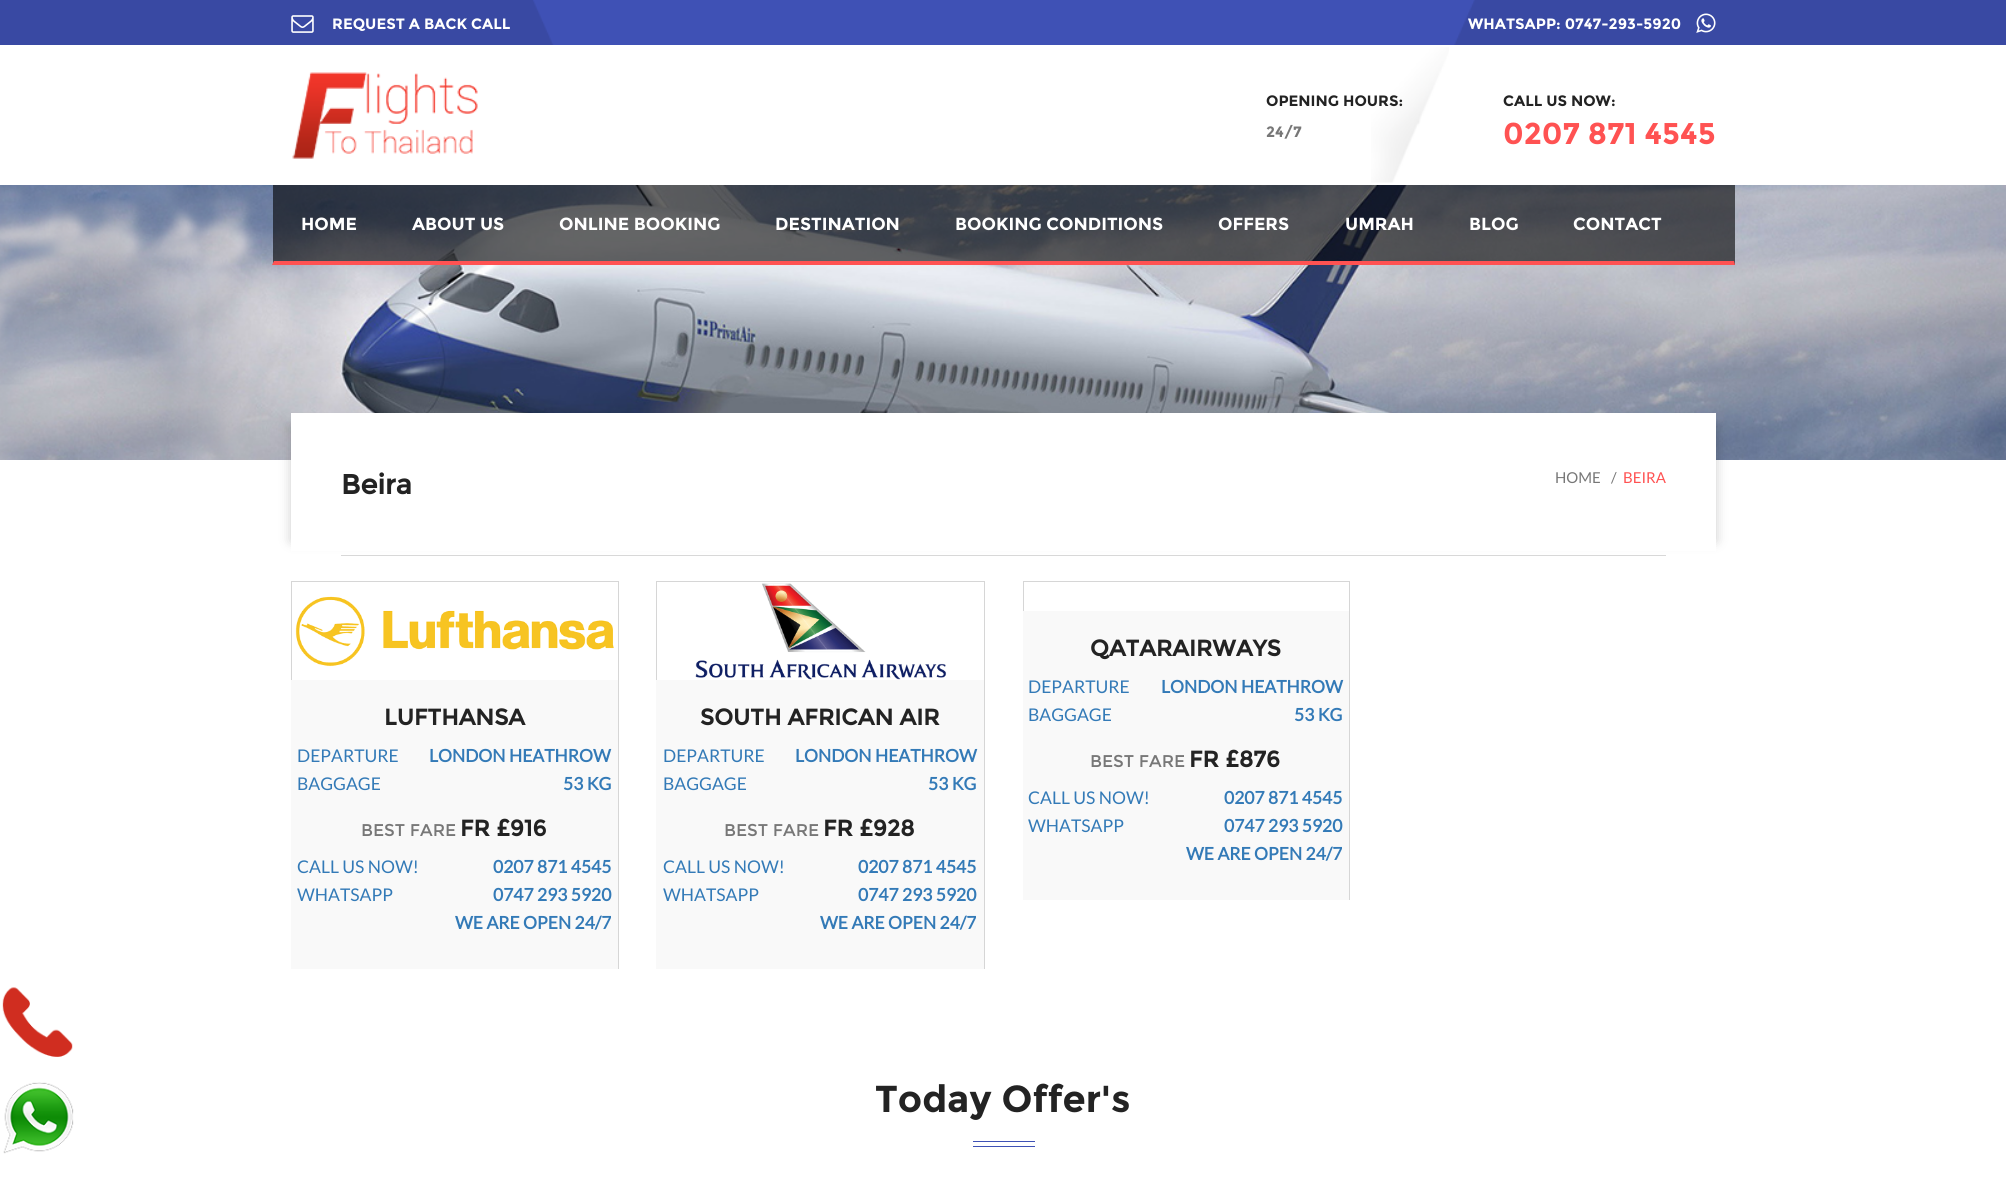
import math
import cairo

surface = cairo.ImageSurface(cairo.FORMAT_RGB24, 2006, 1199)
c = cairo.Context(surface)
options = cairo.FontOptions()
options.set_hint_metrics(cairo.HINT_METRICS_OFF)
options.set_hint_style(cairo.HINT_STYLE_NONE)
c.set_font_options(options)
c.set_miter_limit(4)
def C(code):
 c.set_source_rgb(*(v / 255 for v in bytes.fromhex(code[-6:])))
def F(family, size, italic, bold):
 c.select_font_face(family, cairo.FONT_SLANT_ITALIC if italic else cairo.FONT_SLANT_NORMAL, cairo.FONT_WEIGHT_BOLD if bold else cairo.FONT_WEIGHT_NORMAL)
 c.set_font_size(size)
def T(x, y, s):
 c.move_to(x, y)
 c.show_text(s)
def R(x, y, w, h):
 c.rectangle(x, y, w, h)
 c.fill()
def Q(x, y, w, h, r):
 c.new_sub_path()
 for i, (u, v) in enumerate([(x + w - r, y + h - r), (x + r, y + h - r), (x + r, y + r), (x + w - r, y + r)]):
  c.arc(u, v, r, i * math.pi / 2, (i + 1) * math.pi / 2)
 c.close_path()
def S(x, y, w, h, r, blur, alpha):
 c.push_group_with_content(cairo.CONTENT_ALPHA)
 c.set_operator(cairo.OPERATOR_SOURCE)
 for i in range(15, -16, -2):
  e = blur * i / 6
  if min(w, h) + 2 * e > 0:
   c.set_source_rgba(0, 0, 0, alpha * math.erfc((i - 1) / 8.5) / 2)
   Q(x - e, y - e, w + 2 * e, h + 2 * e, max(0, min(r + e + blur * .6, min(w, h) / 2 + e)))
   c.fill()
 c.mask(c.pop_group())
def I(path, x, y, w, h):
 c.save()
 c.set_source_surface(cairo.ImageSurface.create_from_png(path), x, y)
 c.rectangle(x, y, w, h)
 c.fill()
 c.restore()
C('ffffff')
c.paint()
I('1.png',0,0,2006,45)
I('2.png',291,15,23,18)
F('Montserrat',15,0,1)
C('ffffff')
T(332,29,'REQUEST A BACK CALL')
T(1468,29,'WHATSAPP: 0747-293-5920')
I('3.png',1696,13,20,20)
I('4.png',1371,47,78,138)
I('5.png',292,72,186,87)
C('232323')
T(1266,106,'OPENING HOURS:')
C('777777')
T(1266,137,'24/7')
C('232323')
T(1503,106,'CALL US NOW:')
F('Montserrat',30,0,1)
C('ff5252')
T(1503,144,'0207 871 4545')
I('6.png',0,185,2006,275)
c.set_source_rgba(0,0,0,0.6)
R(273,185,1462,80)
C('ff5252')
c.new_path()
c.move_to(1735,265)
c.line_to(272,265)
c.line_to(274,261)
c.line_to(1734,261)
c.close_path()
c.fill()
F('Montserrat',17.5,0,1)
C('ffffff')
T(301,230,'HOME')
T(412,230,'ABOUT US')
T(559,230,'ONLINE BOOKING')
T(775,230,'DESTINATION')
T(955,230,'BOOKING CONDITIONS')
T(1218,230,'OFFERS')
T(1345,230,'UMRAH')
T(1469,230,'BLOG')
T(1573,230,'CONTACT')
C('000000')
S(291,425,1425,116,0,6,.2)
C('ffffff')
R(291,413,1425,138)
F('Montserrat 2',27.5,0,1)
C('232323')
T(341,494,'Beira')
F('Lato',15,0,0)
C('777777')
T(1555,483,'HOME')
T(1611,483,'/')
C('ff5252')
T(1623,483,'BEIRA')
C('d8d8d8')
R(341,555,1325,1)
c.rectangle(291.5,581.5,327,387)
C('d6d6d6')
c.set_line_width(1)
c.stroke()
I('7.png',295,596,319,71)
C('f9f9f9')
R(291,680,327,289)
F('Montserrat 2',22.5,0,1)
C('232323')
T(384,725,'LUFTHANSA')
F('Lato',17.5,0,0)
C('337ab7')
T(297,762,'DEPARTURE')
F('Lato',17.5,0,1)
T(429,762,'LONDON HEATHROW')
F('Lato',17.5,0,0)
T(297,790,'BAGGAGE')
F('Lato',17.5,0,1)
T(563,790,'53 KG')
F('Montserrat',17,0,0)
C('777777')
T(361,836,'BEST FARE')
F('Montserrat 2',22.5,0,1)
C('232323')
T(460,836,'FR £916')
F('Lato',17.5,0,0)
C('337ab7')
T(297,873,'CALL US NOW!')
F('Lato',17.5,0,1)
T(493,873,'0207 871 4545')
F('Lato',17.5,0,0)
T(297,901,'WHATSAPP')
F('Lato',17.5,0,1)
T(493,901,'0747 293 5920')
T(455,929,'WE ARE OPEN 24/7')
c.rectangle(656.5,581.5,328,387)
C('d6d6d6')
c.stroke()
I('8.png',695,583,252,97)
C('f9f9f9')
R(656,680,328,289)
F('Montserrat 2',22.5,0,1)
C('232323')
T(700,725,'SOUTH AFRICAN AIR')
F('Lato',17.5,0,0)
C('337ab7')
T(663,762,'DEPARTURE')
F('Lato',17.5,0,1)
T(795,762,'LONDON HEATHROW')
F('Lato',17.5,0,0)
T(663,790,'BAGGAGE')
F('Lato',17.5,0,1)
T(928,790,'53 KG')
F('Montserrat',17,0,0)
C('777777')
T(724,836,'BEST FARE')
F('Montserrat 2',22.5,0,1)
C('232323')
T(823,836,'FR £928')
F('Lato',17.5,0,0)
C('337ab7')
T(663,873,'CALL US NOW!')
F('Lato',17.5,0,1)
T(858,873,'0207 871 4545')
F('Lato',17.5,0,0)
T(663,901,'WHATSAPP')
F('Lato',17.5,0,1)
T(858,901,'0747 293 5920')
T(820,929,'WE ARE OPEN 24/7')
c.rectangle(1023.5,581.5,326,318)
C('d6d6d6')
c.stroke()
C('f9f9f9')
R(1023,611,326,289)
F('Montserrat 2',22.5,0,1)
C('232323')
T(1090,656,'QATARAIRWAYS')
F('Lato',17.5,0,0)
C('337ab7')
T(1028,693,'DEPARTURE')
F('Lato',17.5,0,1)
T(1161,693,'LONDON HEATHROW')
F('Lato',17.5,0,0)
T(1028,721,'BAGGAGE')
F('Lato',17.5,0,1)
T(1294,721,'53 KG')
F('Montserrat',17,0,0)
C('777777')
T(1090,767,'BEST FARE')
F('Montserrat 2',22.5,0,1)
C('232323')
T(1189,767,'FR £876')
F('Lato',17.5,0,0)
C('337ab7')
T(1028,804,'CALL US NOW!')
F('Lato',17.5,0,1)
T(1224,804,'0207 871 4545')
F('Lato',17.5,0,0)
T(1028,832,'WHATSAPP')
F('Lato',17.5,0,1)
T(1224,832,'0747 293 5920')
T(1186,860,'WE ARE OPEN 24/7')
I('9.png',2,987,71,70)
I('10.png',3,1082,71,72)
F('Montserrat',37.5,0,1)
C('232323')
T(875,1112,'Today Offer\'s')
C('3f51b5')
R(973,1141,62,1)
R(973,1146,62,1)
surface.write_to_png('o.png')
